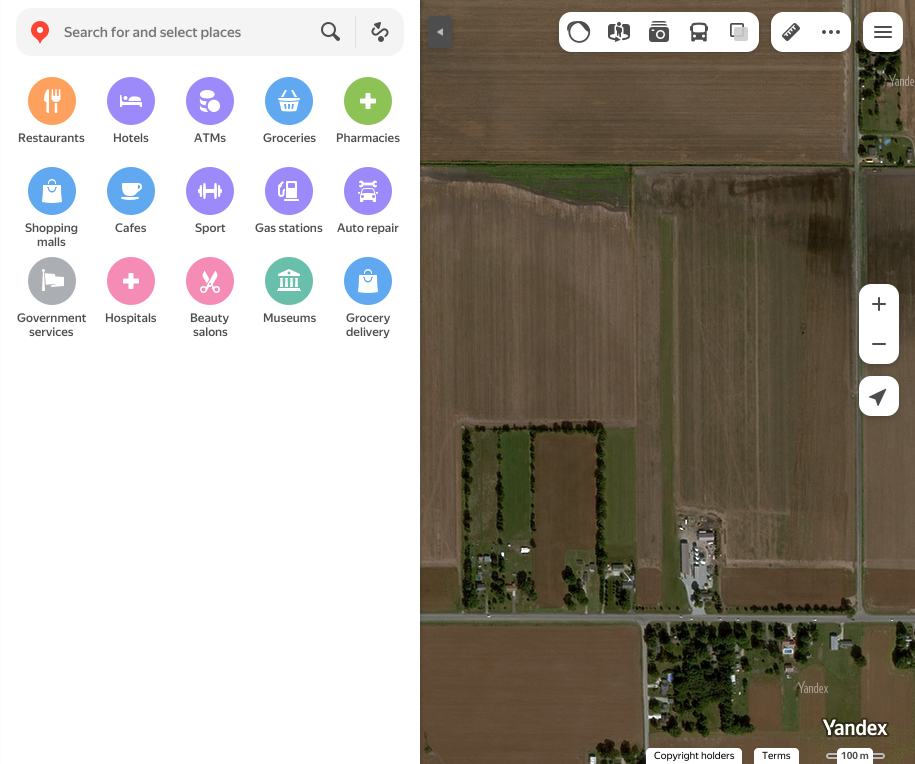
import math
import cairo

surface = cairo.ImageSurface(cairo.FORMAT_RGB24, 915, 764)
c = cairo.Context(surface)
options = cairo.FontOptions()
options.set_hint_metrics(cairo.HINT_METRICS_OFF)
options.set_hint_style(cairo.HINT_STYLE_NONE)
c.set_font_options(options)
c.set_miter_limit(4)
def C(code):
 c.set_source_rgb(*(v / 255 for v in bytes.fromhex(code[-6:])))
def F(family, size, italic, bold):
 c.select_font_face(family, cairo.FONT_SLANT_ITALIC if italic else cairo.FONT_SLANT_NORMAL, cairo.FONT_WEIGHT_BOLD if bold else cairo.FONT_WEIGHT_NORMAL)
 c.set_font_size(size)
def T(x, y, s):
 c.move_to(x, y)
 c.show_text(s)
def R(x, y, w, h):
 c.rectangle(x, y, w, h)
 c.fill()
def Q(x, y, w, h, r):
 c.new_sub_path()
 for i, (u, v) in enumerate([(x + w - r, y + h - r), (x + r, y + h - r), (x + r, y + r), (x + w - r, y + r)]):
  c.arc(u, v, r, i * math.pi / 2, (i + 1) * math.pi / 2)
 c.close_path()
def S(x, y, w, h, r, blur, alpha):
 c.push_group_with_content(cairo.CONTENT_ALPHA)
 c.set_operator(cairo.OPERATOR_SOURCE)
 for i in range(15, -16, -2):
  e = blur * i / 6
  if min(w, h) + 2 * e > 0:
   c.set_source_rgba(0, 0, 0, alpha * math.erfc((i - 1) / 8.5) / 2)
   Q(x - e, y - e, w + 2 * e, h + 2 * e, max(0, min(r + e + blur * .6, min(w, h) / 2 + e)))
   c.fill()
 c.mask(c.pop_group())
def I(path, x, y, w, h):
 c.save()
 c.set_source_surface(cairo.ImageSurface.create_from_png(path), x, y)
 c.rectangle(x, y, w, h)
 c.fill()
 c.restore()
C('ffffff')
c.paint()
I('1.png',420,0,148,141)
I('2.png',568,0,256,141)
I('3.png',824,0,91,141)
I('4.png',420,141,148,256)
I('5.png',568,141,256,256)
I('6.png',824,141,91,256)
I('7.png',420,397,148,256)
I('8.png',568,397,256,256)
I('9.png',824,397,91,256)
I('10.png',420,653,148,111)
I('11.png',568,653,256,111)
I('12.png',824,653,91,111)
C('000000')
S(2,0,420,764,0,1,.1)
S(428,18,24,32,4,3,.2)
C('ffffff')
R(1,0,419,764)
C('f4f4f4')
Q(16,8,388,48,16)
c.fill()
I('13.png',31,21,18,23)
F('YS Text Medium',14,0,0)
C('757575')
T(64,37,'Search for and select places')
I('14.png',321,22,19,19)
C('e0e0e0')
R(355,16,1,32)
I('15.png',371,22,18,20)
C('000000')
S(559,14,200,40,12,3,.2)
C('ffffff')
c.new_path()
c.move_to(571,12)
c.line_to(599,12)
c.line_to(599,52)
c.line_to(571,52)
c.curve_to(564.5,52,559,46.5,559,40)
c.line_to(559,24)
c.curve_to(559,17.5,564.5,12,571,12)
c.close_path()
c.fill()
I('16.png',567,21,24,22)
R(599,12,120,40)
I('17.png',608,22,22,20)
c.new_path()
c.move_to(719,12)
c.line_to(747,12)
c.curve_to(753.5,12,759,17.5,759,24)
c.line_to(759,40)
c.curve_to(759,46.5,753.5,52,747,52)
c.line_to(719,52)
c.close_path()
c.fill()
I('18.png',730,23,18,18)
I('19.png',649,21,20,21)
I('20.png',690,22,18,20)
C('000000')
S(771,14,80,40,12,3,.2)
C('ffffff')
c.new_path()
c.move_to(783,12)
c.line_to(811,12)
c.line_to(811,52)
c.line_to(783,52)
c.curve_to(776.5,52,771,46.5,771,40)
c.line_to(771,24)
c.curve_to(771,17.5,776.5,12,783,12)
c.close_path()
c.fill()
I('21.png',782,23,18,18)
c.new_path()
c.move_to(811,12)
c.line_to(839,12)
c.curve_to(845.5,12,851,17.5,851,24)
c.line_to(851,40)
c.curve_to(851,46.5,845.5,52,839,52)
c.line_to(811,52)
c.close_path()
c.fill()
I('22.png',822,30,18,4)
C('000000')
S(863,14,40,40,12,3,.2)
C('ffffff')
Q(863,12,40,40,12)
c.fill()
I('23.png',874,26,18,12)
C('000000')
S(859,286,40,80,12,3,.2)
C('ffffff')
c.new_path()
c.move_to(871,284)
c.line_to(887,284)
c.curve_to(893.5,284,899,289.5,899,296)
c.line_to(899,324)
c.line_to(859,324)
c.line_to(859,296)
c.curve_to(859,289.5,864.5,284,871,284)
c.close_path()
c.fill()
I('24.png',872,297,14,14)
c.new_path()
c.move_to(859,324)
c.line_to(899,324)
c.line_to(899,352)
c.curve_to(899,358.5,893.5,364,887,364)
c.line_to(871,364)
c.curve_to(864.5,364,859,358.5,859,352)
c.close_path()
c.fill()
I('25.png',872,343,14,2)
C('000000')
S(859,378,40,40,12,3,.2)
C('ffffff')
Q(859,376,40,40,12)
c.fill()
I('26.png',869,388,18,18)
C('4d4d4d')
Q(428,16,24,32,4)
c.fill()
I('27.png',437,28,6,8)
C('ffa15e')
c.arc(52,101,24,0,2 * math.pi)
c.fill()
I('28.png',44,89,17,24)
F('YS Text Medium',12,0,0)
C('4d4d4d')
T(18,142,'Restaurants')
C('9c89fa')
c.new_path()
c.arc(131,101,24,0,2 * math.pi)
c.fill()
I('29.png',120,95,22,12)
C('4d4d4d')
T(113,142,'Hotels')
C('9c89fa')
c.new_path()
c.arc(210,101,24,0,2 * math.pi)
c.fill()
I('30.png',199,90,22,22)
C('4d4d4d')
T(194,142,'ATMs')
C('60a8f0')
c.new_path()
c.arc(289,101,24,0,2 * math.pi)
c.fill()
I('31.png',278,90,22,22)
C('4d4d4d')
T(263,142,'Groceries')
C('8dc257')
c.new_path()
c.arc(368,101,24,0,2 * math.pi)
c.fill()
I('32.png',360,93,16,16)
C('4d4d4d')
T(336,142,'Pharmacies')
C('60a8f0')
c.new_path()
c.arc(52,191,24,0,2 * math.pi)
c.fill()
I('33.png',42,179,20,24)
C('4d4d4d')
T(25,232,'Shopping')
T(37,246,'malls')
C('60a8f0')
c.new_path()
c.arc(131,191,24,0,2 * math.pi)
c.fill()
I('34.png',121,183,21,17)
C('4d4d4d')
T(115,232,'Cafes')
C('9c89fa')
c.new_path()
c.arc(210,191,24,0,2 * math.pi)
c.fill()
I('35.png',198,183,24,16)
C('4d4d4d')
T(195,232,'Sport')
C('9c89fa')
c.new_path()
c.arc(289,191,24,0,2 * math.pi)
c.fill()
I('36.png',278,181,21,20)
C('4d4d4d')
T(255,232,'Gas stations')
C('9c89fa')
c.new_path()
c.arc(368,191,24,0,2 * math.pi)
c.fill()
I('37.png',358,180,20,22)
C('4d4d4d')
T(337,232,'Auto repair')
C('abaeb2')
c.new_path()
c.arc(52,281,24,0,2 * math.pi)
c.fill()
I('38.png',42,269,22,22)
C('4d4d4d')
T(17,322,'Government')
T(29,336,'services')
C('f58cb6')
c.new_path()
c.arc(131,281,24,0,2 * math.pi)
c.fill()
I('39.png',123,273,16,16)
C('4d4d4d')
T(105,322,'Hospitals')
C('f58cb6')
c.new_path()
c.arc(210,281,24,0,2 * math.pi)
c.fill()
I('40.png',200,270,20,23)
C('4d4d4d')
T(190,322,'Beauty')
T(193,336,'salons')
C('69bfaa')
c.new_path()
c.arc(289,281,24,0,2 * math.pi)
c.fill()
I('41.png',277,269,24,22)
C('4d4d4d')
T(263,322,'Museums')
C('60a8f0')
c.new_path()
c.arc(368,281,24,0,2 * math.pi)
c.fill()
I('33.png',358,269,20,24)
C('4d4d4d')
T(346,322,'Grocery')
T(346,336,'delivery')
I('42.png',821,717,69,21)
C('ffffff')
c.new_path()
c.move_to(650,748)
c.line_to(738,748)
c.curve_to(740,748,742,750,742,752)
c.line_to(742,764)
c.line_to(646,764)
c.line_to(646,752)
c.curve_to(646,750,648,748,650,748)
c.close_path()
c.fill()
F('YS Text',10,0,0)
C('000000')
T(654,759,'Copyright holders')
C('ffffff')
c.new_path()
c.move_to(758,748)
c.line_to(795,748)
c.curve_to(797,748,799,750,799,752)
c.line_to(799,764)
c.line_to(754,764)
c.line_to(754,752)
c.curve_to(754,750,756,748,758,748)
c.close_path()
c.fill()
C('000000')
T(762,759,'Terms')
c.set_source_rgba(1,1,1,0.6)
Q(826,753,59,6,3)
c.fill()
C('4d4d4d')
Q(828,755,55,2,1)
c.fill()
C('ffffff')
c.new_path()
c.move_to(841,748)
c.line_to(869,748)
c.curve_to(871,748,873,750,873,752)
c.line_to(873,764)
c.line_to(837,764)
c.line_to(837,752)
c.curve_to(837,750,839,748,841,748)
c.close_path()
c.fill()
F('YS Text',10,0,1)
C('4d4d4d')
T(841,759,'100 m')
surface.write_to_png('o.png')
